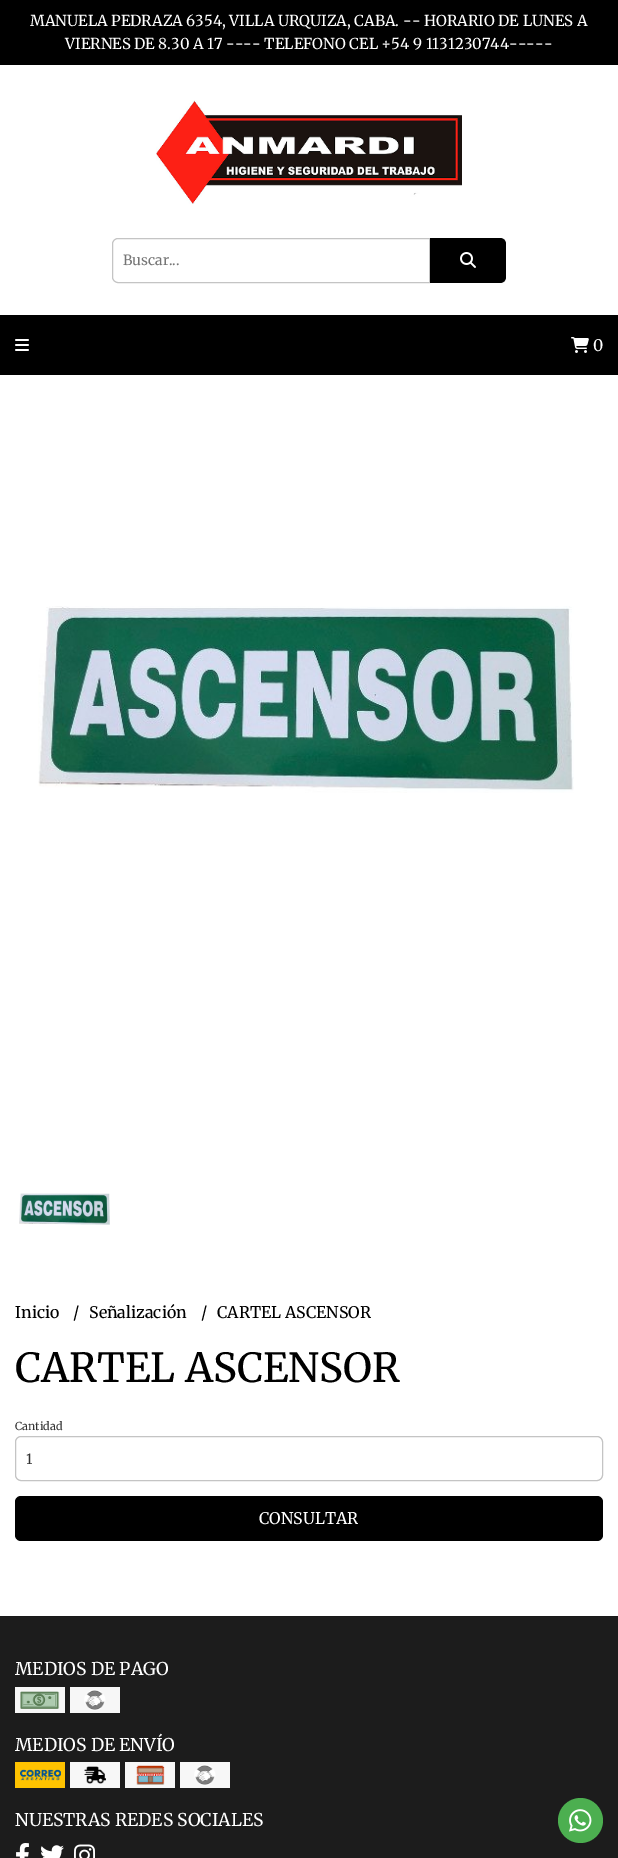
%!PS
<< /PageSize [618 1858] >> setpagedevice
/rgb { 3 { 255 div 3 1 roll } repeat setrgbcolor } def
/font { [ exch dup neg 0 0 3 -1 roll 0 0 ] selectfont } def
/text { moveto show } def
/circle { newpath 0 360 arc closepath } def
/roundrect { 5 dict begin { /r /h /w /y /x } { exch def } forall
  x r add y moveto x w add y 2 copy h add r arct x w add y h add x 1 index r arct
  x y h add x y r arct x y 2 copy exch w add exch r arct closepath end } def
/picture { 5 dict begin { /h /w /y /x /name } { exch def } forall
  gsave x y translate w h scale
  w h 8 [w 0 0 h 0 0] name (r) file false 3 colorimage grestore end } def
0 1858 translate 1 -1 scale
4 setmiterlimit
255 255 255 rgb
0 0 618 1858 rectfill
0 0 0 rgb
0 0 618 65 rectfill
(img_01.rgb) 156 100 306 104 picture
196 196 196 rgb
118 238.5 moveto 311.5 0 rlineto 0 44 rlineto -311.5 0 rlineto -3 0 -5.5 -2.5 -5.5 -5.5 rcurveto 0 -33 rlineto 0 -3 2.5 -5.5 5.5 -5.5 rcurveto closepath stroke
0 0 0 rgb
430 238 moveto 70 0 rlineto 3.5 0 6 2.5 6 6 rcurveto 0 33 rlineto 0 3.5 -2.5 6 -6 6 rcurveto -70 0 rlineto closepath fill
(img_02.rgb) 460 252 16 16 picture
0 315 618 60 rectfill
(img_03.rgb) 15 339 14 12 picture
(img_04.rgb) 571 337 18 16 picture
(img_05.rgb) 38 606 536 187 picture
(img_06.rgb) 19 1193 91 32 picture
196 196 196 rgb
15.5 1436.5 587 44 5.5 roundrect stroke
0 0 0 rgb
15 1496 588 45 6 roundrect fill
28 28 28 rgb
0 1617 618 241 rectfill
25 25 25 rgb
0 1616 618 1 rectfill
(img_07.rgb) 15 1687 50 26 picture
(img_08.rgb) 70 1687 50 26 picture
(img_09.rgb) 15 1762 50 26 picture
(img_10.rgb) 70 1762 50 26 picture
(img_11.rgb) 125 1762 50 26 picture
(img_12.rgb) 180 1762 50 26 picture
(img_13.rgb) 16 1843 13 15 picture
(img_14.rgb) 41 1845 23 13 picture
(img_15.rgb) 74 1844 21 14 picture
76 175 80 rgb
580.5 1820.5 22.5 circle fill
(img_16.rgb) 569 1809 23 23 picture
/Merriweather-Regular 15 font
255 255 255 rgb
(MANUELA PEDRAZA 6354, VILLA URQUIZA, CABA. -- HORARIO DE LUNES A) 30 26 text
(VIERNES DE 8.30 A 17 ---- TELEFONO CEL +54 9 1131230744-----) 65 49 text
/Merriweather-Regular 14 font
117 117 117 rgb
(Buscar...) 123 265 text
/Merriweather-Regular 16 font
255 255 255 rgb
(0) 593 351 text
0 0 0 rgb
(Inicio) 15 1318 text
(/) 73 1318 text
(Señalización) 89 1318 text
(/) 201 1318 text
(CARTEL ASCENSOR) 217 1318 text
/Merriweather-Regular 40 font
(CARTEL ASCENSOR) 15 1382 text
/Merriweather-Regular 11 font
51 51 51 rgb
(Cantidad) 15 1430 text
/Merriweather-Regular 14 font
(1) 26 1464 text
/Merriweather-Regular 16 font
255 255 255 rgb
(CONSULTAR) 259 1524 text
/Merriweather-Regular 17.6 font
(MEDIOS DE PAGO) 15 1675 text
(MEDIOS DE ENVÍO) 15 1751 text
(NUESTRAS REDES SOCIALES) 15 1826 text
showpage
